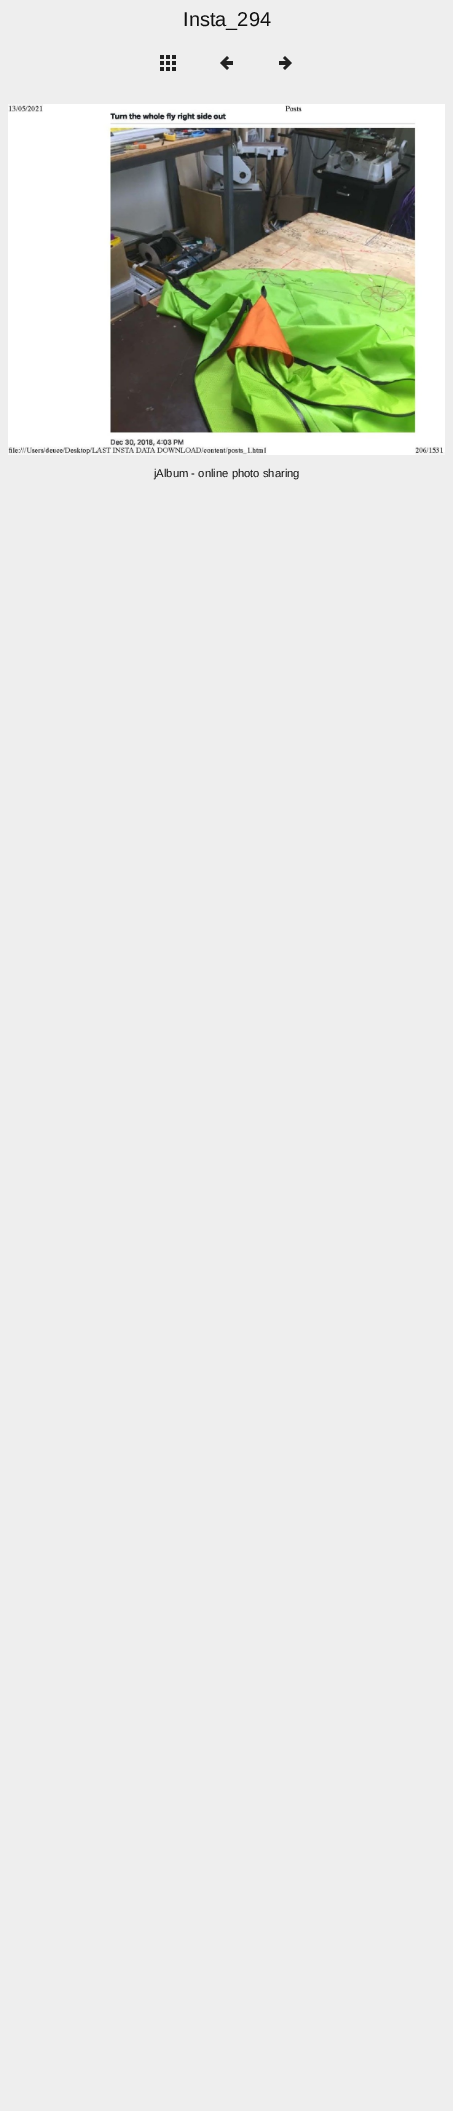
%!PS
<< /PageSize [453 2111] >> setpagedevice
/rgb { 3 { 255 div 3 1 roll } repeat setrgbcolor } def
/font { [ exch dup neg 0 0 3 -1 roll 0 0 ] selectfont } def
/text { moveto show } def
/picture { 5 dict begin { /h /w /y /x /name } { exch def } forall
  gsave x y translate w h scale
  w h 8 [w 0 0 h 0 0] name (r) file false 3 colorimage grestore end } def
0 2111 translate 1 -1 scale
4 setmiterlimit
238 238 238 rgb
0 0 453 2111 rectfill
(img_01.rgb) 160 55 16 16 picture
(img_02.rgb) 220 56 13 14 picture
(img_03.rgb) 279 56 13 14 picture
(img_04.rgb) 8 104 437 351 picture
/LiberationSans-Regular 20 font
17 17 17 rgb
(Insta_294) 183 26 text
/LiberationSans-Regular 11.25 font
(jAlbum - online photo sharing) 154 477 text
showpage
